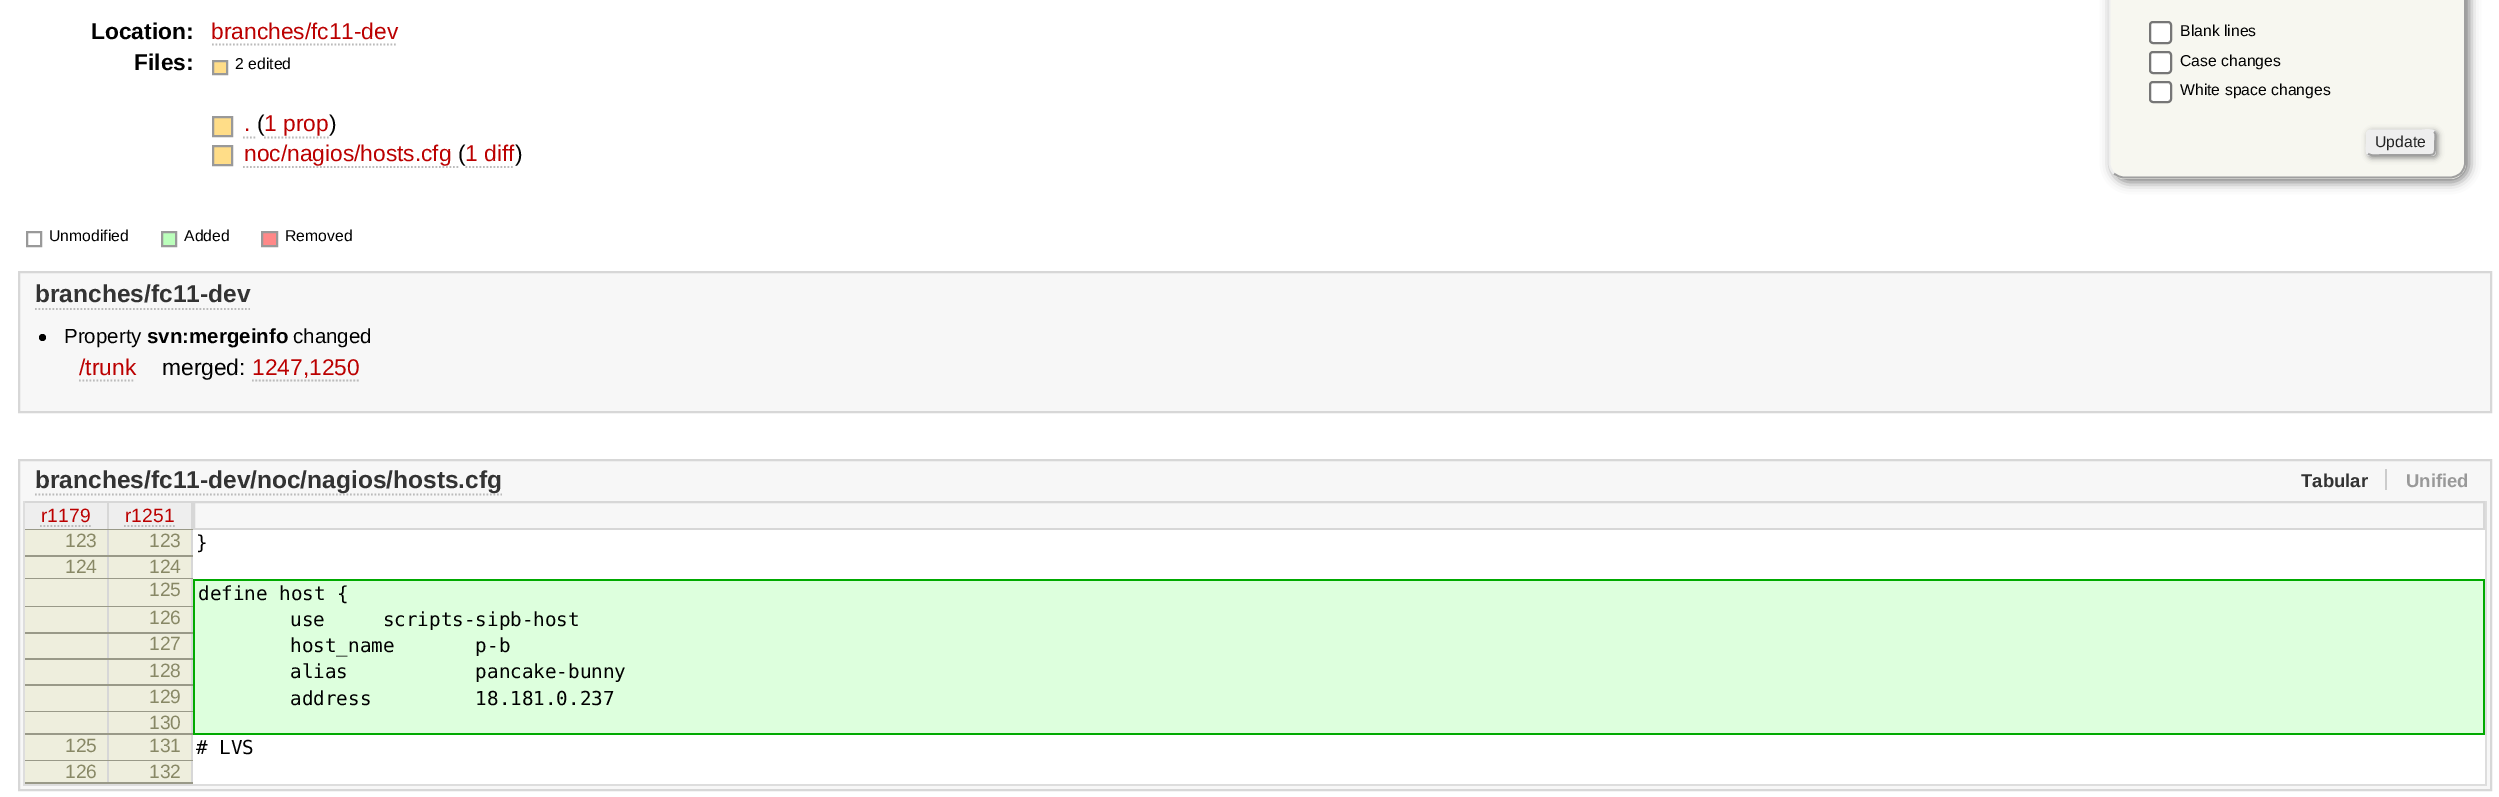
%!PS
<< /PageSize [2499 797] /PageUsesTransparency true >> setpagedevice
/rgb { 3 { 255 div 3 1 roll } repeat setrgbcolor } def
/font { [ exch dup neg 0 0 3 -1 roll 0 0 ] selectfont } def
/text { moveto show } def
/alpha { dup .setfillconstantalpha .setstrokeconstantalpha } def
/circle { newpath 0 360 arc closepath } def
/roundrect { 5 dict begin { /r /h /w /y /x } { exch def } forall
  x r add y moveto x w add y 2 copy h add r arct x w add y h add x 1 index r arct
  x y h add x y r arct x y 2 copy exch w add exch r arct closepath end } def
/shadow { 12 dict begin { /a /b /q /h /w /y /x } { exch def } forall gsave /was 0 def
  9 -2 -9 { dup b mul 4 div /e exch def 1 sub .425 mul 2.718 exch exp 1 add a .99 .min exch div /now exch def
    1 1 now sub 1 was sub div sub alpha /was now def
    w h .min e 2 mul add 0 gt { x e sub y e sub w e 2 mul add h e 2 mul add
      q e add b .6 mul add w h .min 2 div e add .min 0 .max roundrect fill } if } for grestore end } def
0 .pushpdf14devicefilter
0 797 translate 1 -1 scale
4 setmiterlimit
255 255 255 rgb
0 0 2499 797 rectfill
187 187 187 rgb
1.8 setlinewidth
[1.75 1.75] 0 setdash
212 44.5 moveto 185 0 rlineto stroke
255 221 136 rgb
213 61 moveto 14 0 rlineto 0 13 rlineto -14 0 rlineto closepath gsave fill grestore
153 153 153 rgb
2 setlinewidth
[] 0 setdash
stroke
255 221 136 rgb
213 117 moveto 19 0 rlineto 0 19 rlineto -19 0 rlineto closepath gsave fill grestore
153 153 153 rgb
stroke
187 187 187 rgb
1.8 setlinewidth
[1.75 1.75] 0 setdash
243 137.5 moveto 14 0 rlineto stroke
264 137.5 moveto 65 0 rlineto stroke
255 221 136 rgb
213 146 moveto 19 0 rlineto 0 19 rlineto -19 0 rlineto closepath gsave fill grestore
153 153 153 rgb
2 setlinewidth
[] 0 setdash
stroke
187 187 187 rgb
1.8 setlinewidth
[1.75 1.75] 0 setdash
243 167 moveto 215.5 0 rlineto stroke
465.5 167 moveto 49 0 rlineto stroke
119 119 119 rgb
2112 -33 357 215 16 5.5 1 shadow
247 247 240 rgb
2109 -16 357 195 16 roundrect fill
159 159 159 rgb
[] 0 setdash
2460.5 -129.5 moveto 3 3 4.5 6.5 4.5 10.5 rcurveto 0 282 rlineto 0 3.5 -1.5 7.5 -4.5 10.5 rcurveto -3 2.5 -6.5 4 -10.5 4 rcurveto -325.5 0 rlineto -4 0 -7.5 -1.5 -10.5 -4 rcurveto stroke
238 238 238 rgb
2114 173.5 moveto -3 -3 -4.5 -7 -4.5 -10.5 rcurveto 0 -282 rlineto 0 -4 1.5 -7.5 4.5 -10.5 rcurveto 3 -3 6.5 -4.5 10.5 -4.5 rcurveto 325.5 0 rlineto 4 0 7.5 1.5 10.5 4.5 rcurveto stroke
255 255 255 rgb
2150 22 21 21 3 roundrect gsave fill grestore
118 118 118 rgb
2 setlinewidth
stroke
255 255 255 rgb
2150 52 21 21 3 roundrect gsave fill grestore
118 118 118 rgb
stroke
255 255 255 rgb
2150 82 21 20 3 roundrect gsave fill grestore
118 118 118 rgb
stroke
136 136 136 rgb
2368 131 70 27 4 3 1 shadow
238 238 238 rgb
2366 130 70 26 4 roundrect fill
159 159 159 rgb
1.8 setlinewidth
2434 131.5 moveto 2.5 2.5 1 8.5 1 11 rcurveto 0 14 1 12.5 -14 12.5 rcurveto -40 0 rlineto -0.5 0 -10.5 1.5 -13 -1.5 rcurveto stroke
238 238 238 rgb
2368 153.5 moveto -2.5 -2 -1 -8 -1 -11 rcurveto 0 -14 -1 -12 14 -12 rcurveto 40 0 rlineto 0.5 0 10.5 -1.5 13 1 rcurveto stroke
153 153 153 rgb
2 setlinewidth
27 232 14 14 rectstroke
187 255 187 rgb
162 232 moveto 14 0 rlineto 0 14 rlineto -14 0 rlineto closepath gsave fill grestore
153 153 153 rgb
stroke
255 136 136 rgb
262 232 moveto 15 0 rlineto 0 14 rlineto -15 0 rlineto closepath gsave fill grestore
153 153 153 rgb
stroke
247 247 247 rgb
19 272 moveto 2472 0 rlineto 0 140 rlineto -2472 0 rlineto closepath gsave fill grestore
215 215 215 rgb
stroke
187 187 187 rgb
1.8 setlinewidth
[1.75 1.75] 0 setdash
35 309 moveto 215 0 rlineto stroke
0 0 0 rgb
42.5 337.5 3.5 circle fill
187 187 187 rgb
79 380.5 moveto 56 0 rlineto stroke
252 380.5 moveto 107 0 rlineto stroke
247 247 247 rgb
19 460 moveto 2472 0 rlineto 0 330 rlineto -2472 0 rlineto closepath gsave fill grestore
215 215 215 rgb
2 setlinewidth
[] 0 setdash
stroke
187 187 187 rgb
1.8 setlinewidth
[1.75 1.75] 0 setdash
35 494.5 moveto 467 0 rlineto stroke
204 204 204 rgb
2385 469 2 21 rectfill
221 221 221 rgb
2485 501 2 285 rectfill
23 784 2464 2 rectfill
23 501 2 285 rectfill
238 238 238 rgb
25 503 82 26 rectfill
215 215 215 rgb
25 501 168 2 rectfill
107 501 2 283 rectfill
153 153 136 rgb
25 529 84 1 rectfill
187 187 187 rgb
40 526 moveto 51 0 rlineto stroke
238 238 238 rgb
109 503 82 26 rectfill
215 215 215 rgb
191 501 2 283 rectfill
153 153 136 rgb
109 529 84 1 rectfill
187 187 187 rgb
124 526 moveto 51 0 rlineto stroke
215 215 215 rgb
2 setlinewidth
[] 0 setdash
194 502 2290 27 rectstroke
238 238 221 rgb
25 530 82 25 rectfill
153 153 136 rgb
25 555 168 2 rectfill
238 238 221 rgb
109 530 82 25 rectfill
255 255 255 rgb
193 530 2292 49 rectfill
238 238 221 rgb
25 557 82 21 rectfill
153 153 136 rgb
25 578 168 1 rectfill
238 238 221 rgb
109 557 82 21 rectfill
25 579 82 27 rectfill
153 153 136 rgb
25 606 168 1 rectfill
238 238 221 rgb
109 579 82 27 rectfill
221 255 221 rgb
195 581 2288 152 rectfill
0 170 0 rgb
193 579 2292 2 rectfill
2483 579 2 156 rectfill
193 579 2 133 rectfill
238 238 221 rgb
25 607 82 25 rectfill
153 153 136 rgb
25 632 168 2 rectfill
238 238 221 rgb
109 607 82 25 rectfill
25 634 82 24 rectfill
153 153 136 rgb
25 658 168 2 rectfill
238 238 221 rgb
109 634 82 24 rectfill
25 660 82 24 rectfill
153 153 136 rgb
25 684 168 2 rectfill
238 238 221 rgb
109 660 82 24 rectfill
25 686 82 25 rectfill
153 153 136 rgb
25 711 168 1 rectfill
238 238 221 rgb
109 686 82 25 rectfill
25 712 82 21 rectfill
153 153 136 rgb
25 733 168 2 rectfill
0 170 0 rgb
193 733 2292 2 rectfill
193 712 2 23 rectfill
238 238 221 rgb
109 712 82 21 rectfill
25 735 82 25 rectfill
153 153 136 rgb
25 760 168 1 rectfill
238 238 221 rgb
109 735 82 25 rectfill
255 255 255 rgb
193 735 2292 49 rectfill
238 238 221 rgb
25 761 82 21 rectfill
153 153 136 rgb
25 782 168 2 rectfill
238 238 221 rgb
109 761 82 21 rectfill
/LiberationSans-Bold 22.75 font
0 0 0 rgb
(Location:) 91 39 text
/LiberationSans-Regular 22.75 font
187 0 0 rgb
(branches/fc11-dev) 211 39 text
/LiberationSans-Bold 22.75 font
0 0 0 rgb
(Files:) 134 70 text
/LiberationSans-Regular 15.75 font
(2 edited) 235 69 text
/LiberationSans-Regular 22.75 font
187 0 0 rgb
(.) 244 131 text
0 0 0 rgb
(\() 257 131 text
187 0 0 rgb
(1 prop) 264 131 text
0 0 0 rgb
(\)) 329 131 text
187 0 0 rgb
(noc/nagios/hosts.cfg) 244 161 text
0 0 0 rgb
(\() 458 161 text
187 0 0 rgb
(1 diff) 465 161 text
0 0 0 rgb
(\)) 515 161 text
/LiberationSans-Regular 15.75 font
(Blank lines) 2180 36 text
(Case changes) 2180 66 text
(White space changes) 2180 95 text
34 34 34 rgb
(Update) 2375 147 text
0 0 0 rgb
(Unmodified) 49 241 text
(Added) 184 241 text
(Removed) 285 241 text
/LiberationSans-Bold 24.5 font
51 51 51 rgb
(branches/fc11-dev) 35 302 text
/LiberationSans-Regular 20.5 font
0 0 0 rgb
(Property) 64 343 text
/LiberationSans-Bold 20.5 font
(svn:mergeinfo) 147 343 text
/LiberationSans-Regular 20.5 font
(changed) 293 343 text
/LiberationSans-Regular 22.75 font
187 0 0 rgb
(/trunk) 79 375 text
0 0 0 rgb
(merged:) 162 375 text
187 0 0 rgb
(1247,1250) 252 375 text
/LiberationSans-Bold 24.5 font
51 51 51 rgb
(branches/fc11-dev/noc/nagios/hosts.cfg) 35 488 text
/LiberationSans-Bold 18.5 font
(Tabular) 2301 487 text
153 153 153 rgb
(Unified) 2406 487 text
/LiberationSans-Regular 19.25 font
187 0 0 rgb
(r1179) 41 522 text
(r1251) 125 522 text
136 136 102 rgb
(123) 65 547 text
(123) 149 547 text
/DejaVuSansMono-Regular 19.25 font
0 0 0 rgb
(}) 196 549 text
/LiberationSans-Regular 19.25 font
136 136 102 rgb
(124) 65 573 text
(124) 149 573 text
(125) 149 596 text
/DejaVuSansMono-Regular 19.25 font
0 0 0 rgb
(define host {) 198 600 text
/LiberationSans-Regular 19.25 font
136 136 102 rgb
(126) 149 624 text
/DejaVuSansMono-Regular 19.25 font
0 0 0 rgb
(use     scripts-sipb-host) 290 626 text
/LiberationSans-Regular 19.25 font
136 136 102 rgb
(127) 149 650 text
/DejaVuSansMono-Regular 19.25 font
0 0 0 rgb
(host_name       p-b) 290 652 text
/LiberationSans-Regular 19.25 font
136 136 102 rgb
(128) 149 677 text
/DejaVuSansMono-Regular 19.25 font
0 0 0 rgb
(alias           pancake-bunny) 290 678 text
/LiberationSans-Regular 19.25 font
136 136 102 rgb
(129) 149 703 text
/DejaVuSansMono-Regular 19.25 font
0 0 0 rgb
(address         18.181.0.237) 290 705 text
/LiberationSans-Regular 19.25 font
136 136 102 rgb
(130) 149 729 text
(125) 65 752 text
(131) 149 752 text
/DejaVuSansMono-Regular 19.25 font
0 0 0 rgb
(# LVS) 196 754 text
/LiberationSans-Regular 19.25 font
136 136 102 rgb
(126) 65 778 text
(132) 149 778 text
.poppdf14devicefilter showpage
